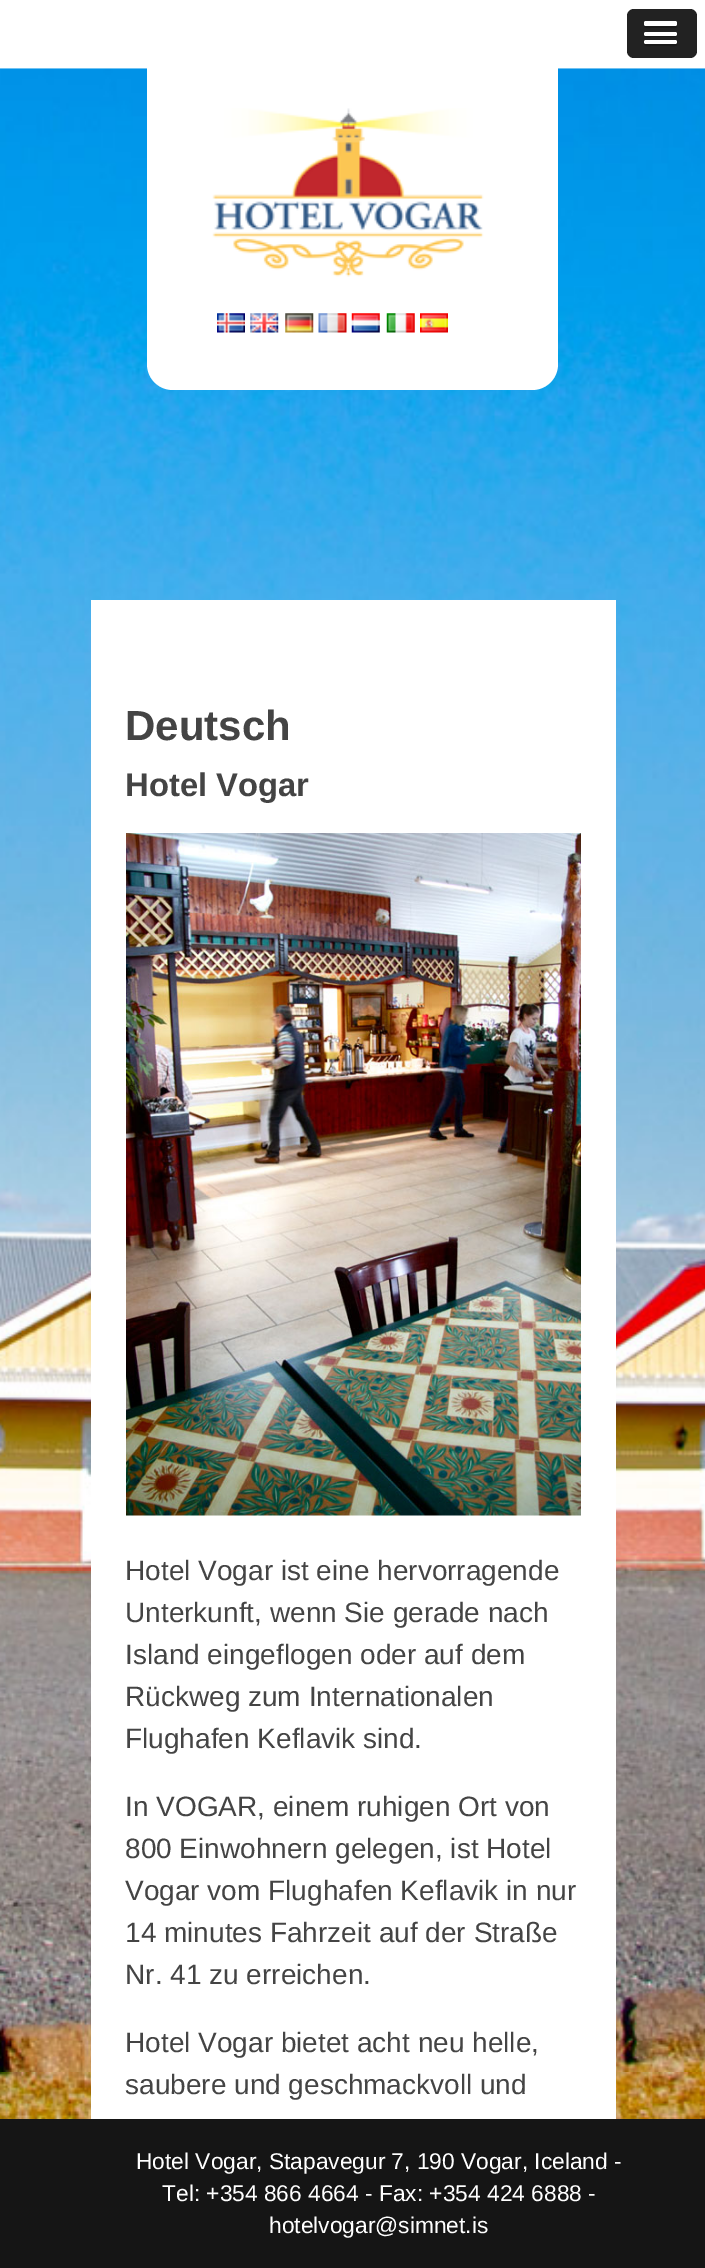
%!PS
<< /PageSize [705 2268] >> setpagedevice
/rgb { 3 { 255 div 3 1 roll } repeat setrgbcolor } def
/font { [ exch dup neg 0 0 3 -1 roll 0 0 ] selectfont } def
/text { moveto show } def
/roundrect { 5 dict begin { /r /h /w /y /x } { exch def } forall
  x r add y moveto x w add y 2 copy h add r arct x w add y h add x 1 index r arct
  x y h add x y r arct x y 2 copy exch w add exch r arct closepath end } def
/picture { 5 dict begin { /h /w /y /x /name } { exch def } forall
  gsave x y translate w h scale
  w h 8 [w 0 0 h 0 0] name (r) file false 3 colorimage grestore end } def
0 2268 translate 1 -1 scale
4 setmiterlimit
255 255 255 rgb
0 0 705 2268 rectfill
34 34 34 rgb
627 9 70 49 7 roundrect fill
26 26 26 rgb
644 24.5 moveto -0.5 4.5 3.5 3.5 7 3.5 rcurveto 19 0 rlineto 3 0 7 1 7 -2.5 rcurveto -0.5 0.5 -1 0.5 -1.5 0.5 rcurveto -29.5 0 rlineto -1 0 -2 -0.5 -2 -1.5 rcurveto closepath fill
255 255 255 rgb
644 21 33 5 2 roundrect fill
26 26 26 rgb
644 34 moveto -1.5 4 6 3 7 3 rcurveto 19 0 rlineto 1 0 8 1 7 -2.5 rcurveto -0.5 0 -1 0.5 -1.5 0.5 rcurveto -29.5 0 rlineto -1 0 -1.5 -0.5 -2 -1 rcurveto closepath fill
255 255 255 rgb
644 32 33 4 2 roundrect fill
26 26 26 rgb
644.5 43 moveto -2.5 4 6 3 6.5 3 rcurveto 19 0 rlineto 1 0 8.5 1 7 -3 rcurveto -1.5 0.5 rlineto -30 0 rlineto closepath fill
255 255 255 rgb
644 40 33 4 2 roundrect fill
(img_01.rgb) 0 68 705 2051 picture
147 68 moveto 411 0 rlineto 0 296 rlineto 0 14.5 -11.5 26 -26 26 rcurveto -359 0 rlineto -14.5 0 -26 -11.5 -26 -26 rcurveto closepath fill
(img_02.rgb) 212 108 272 169 picture
(img_03.rgb) 217 313 28 20 picture
(img_04.rgb) 250 313 29 20 picture
(img_05.rgb) 285 313 29 20 picture
(img_06.rgb) 318 313 29 20 picture
(img_07.rgb) 351 313 29 20 picture
(img_08.rgb) 386 313 29 20 picture
(img_09.rgb) 420 313 28 20 picture
91 600 525 1519 rectfill
(img_10.rgb) 126 833 455 683 picture
21 21 21 rgb
0 2119 705 149 rectfill
/LiberationSans-Bold 42 font
68 68 68 rgb
(Deutsch) 125 740 text
/LiberationSans-Bold 32.75 font
(Hotel Vogar) 125 796 text
/LiberationSans-Regular 28 font
(Hotel Vogar ist eine hervorragende) 125 1580 text
(Unterkunft, wenn Sie gerade nach) 125 1622 text
(Island eingeflogen oder auf dem) 125 1664 text
(Rückweg zum Internationalen) 125 1706 text
(Flughafen Keflavik sind.) 125 1748 text
(In VOGAR, einem ruhigen Ort von) 125 1816 text
(800 Einwohnern gelegen, ist Hotel) 125 1858 text
(Vogar vom Flughafen Keflavik in nur) 125 1900 text
(14 minutes Fahrzeit auf der Straße) 125 1942 text
(Nr. 41 zu erreichen.) 125 1984 text
(Hotel Vogar bietet acht neu helle,) 125 2052 text
(saubere und geschmackvoll und) 125 2094 text
/LiberationSans-Regular 22.75 font
255 255 255 rgb
(Hotel Vogar, Stapavegur 7, 190 Vogar, Iceland -) 136 2169 text
(Tel: +354 866 4664 - Fax: +354 424 6888 -) 162 2201 text
(hotelvogar@simnet.is) 269 2233 text
showpage
